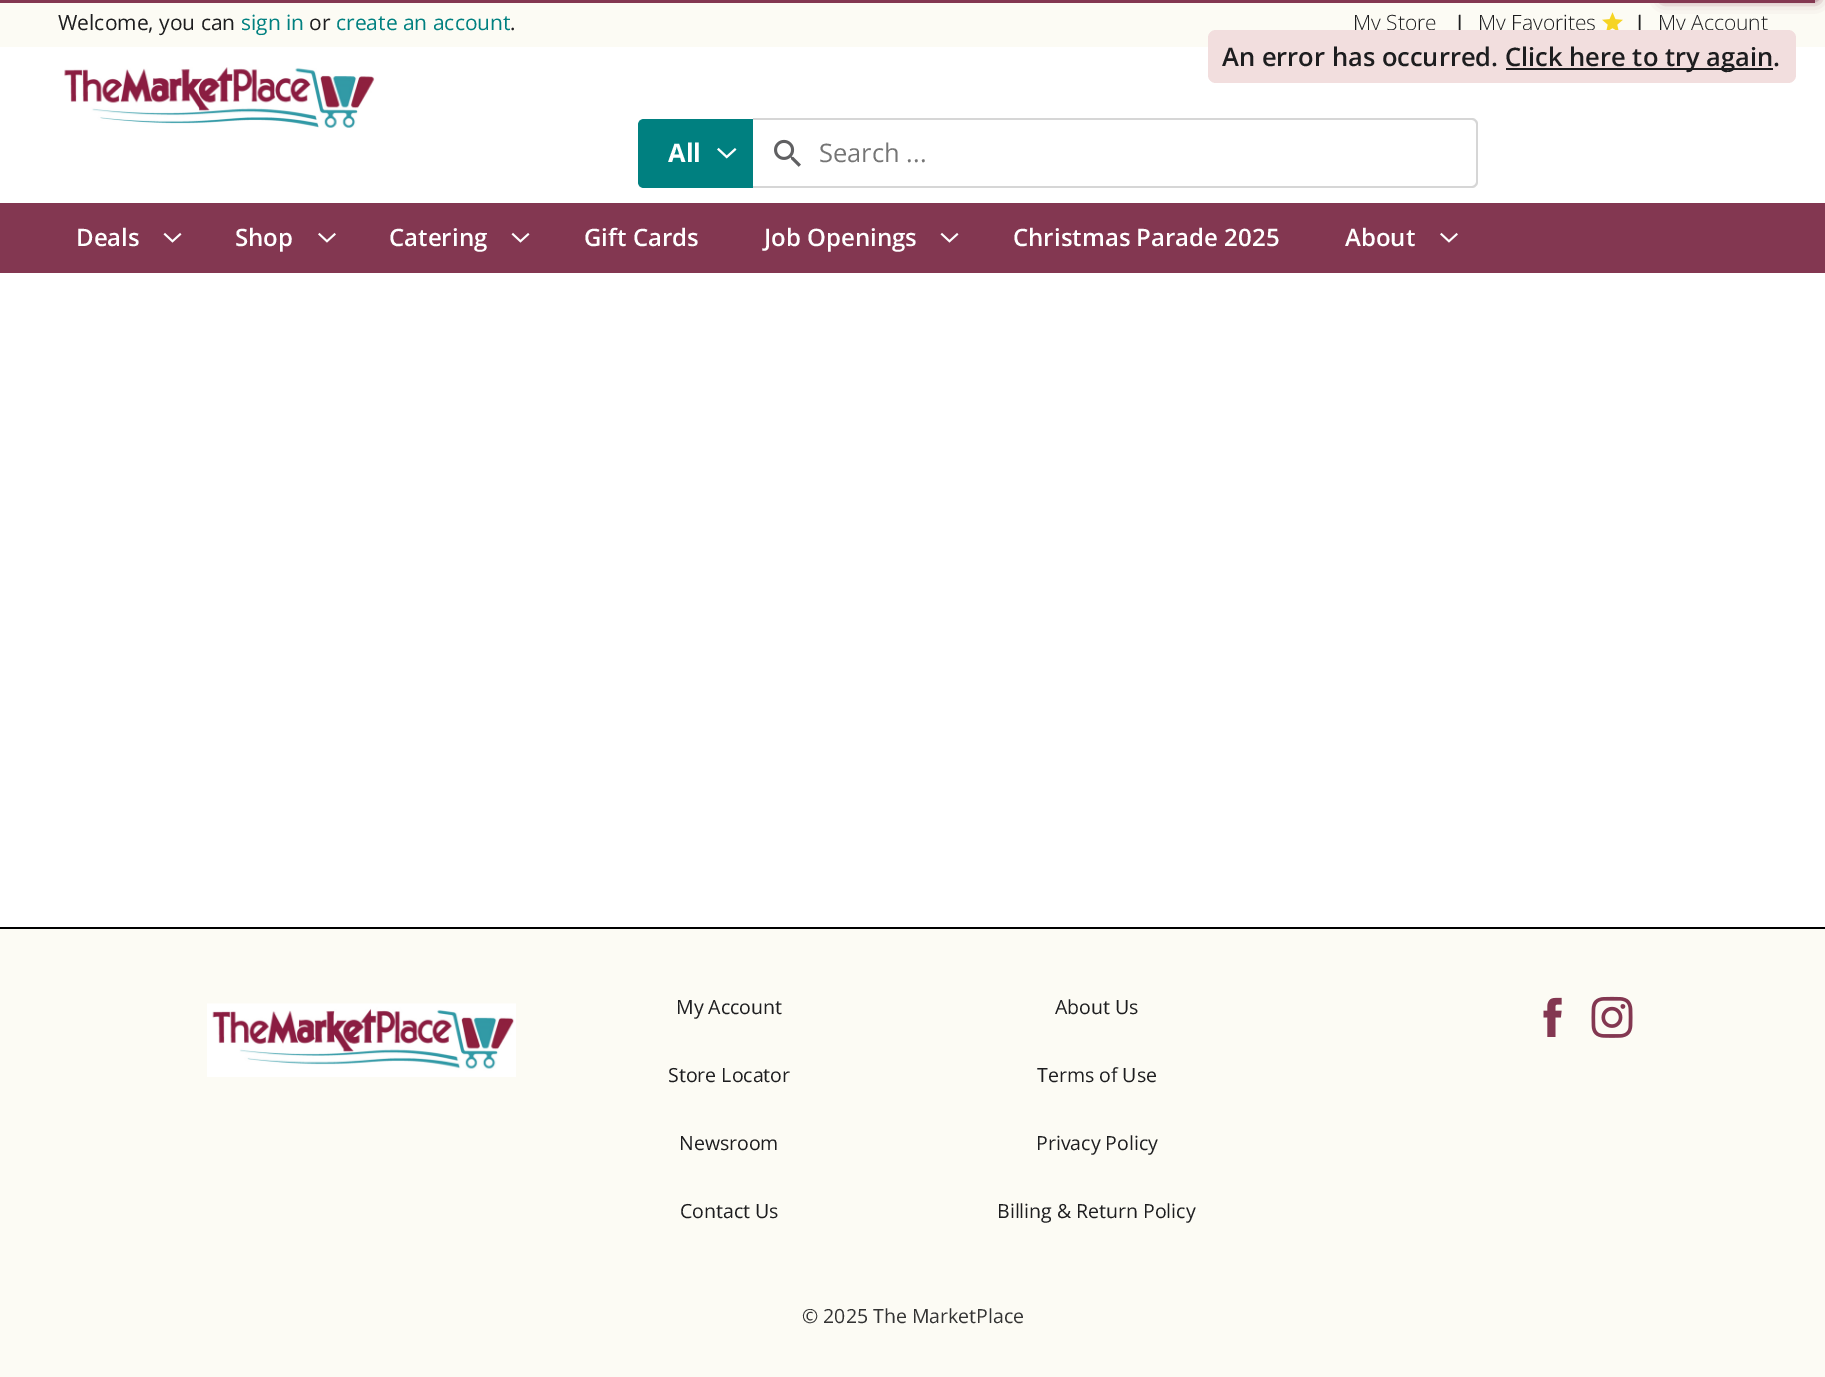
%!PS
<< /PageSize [1825 1377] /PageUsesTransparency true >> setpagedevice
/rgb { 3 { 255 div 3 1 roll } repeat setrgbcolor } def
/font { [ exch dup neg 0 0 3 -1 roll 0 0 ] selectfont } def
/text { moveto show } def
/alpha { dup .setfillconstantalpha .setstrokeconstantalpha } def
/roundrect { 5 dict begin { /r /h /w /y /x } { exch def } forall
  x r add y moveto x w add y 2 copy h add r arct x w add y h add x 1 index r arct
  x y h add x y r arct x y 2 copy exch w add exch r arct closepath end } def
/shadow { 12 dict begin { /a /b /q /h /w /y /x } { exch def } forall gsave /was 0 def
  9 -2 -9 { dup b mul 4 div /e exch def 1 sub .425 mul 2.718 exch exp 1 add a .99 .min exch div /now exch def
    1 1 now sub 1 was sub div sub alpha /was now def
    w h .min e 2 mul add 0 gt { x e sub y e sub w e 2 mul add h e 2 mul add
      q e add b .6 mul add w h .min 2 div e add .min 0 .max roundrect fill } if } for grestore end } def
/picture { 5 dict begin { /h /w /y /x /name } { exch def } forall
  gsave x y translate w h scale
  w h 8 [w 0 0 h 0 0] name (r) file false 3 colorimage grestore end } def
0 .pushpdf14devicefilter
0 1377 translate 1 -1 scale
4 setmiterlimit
255 255 255 rgb
0 0 1825 1377 rectfill
252 251 244 rgb
0 0 1825 47 rectfill
(img_01.rgb) 1602 12 21 18 picture
(img_02.rgb) 64 67 311 61 picture
0 128 128 rgb
644 119 moveto 109 0 rlineto 0 69 rlineto -109 0 rlineto -3.5 0 -6 -2.5 -6 -6 rcurveto 0 -57 rlineto 0 -3.5 2.5 -6 6 -6 rcurveto closepath fill
(img_03.rgb) 717 147 20 12 picture
214 214 214 rgb
753 118 moveto 719 0 rlineto 3 0 6 3 6 6 rcurveto 0 58 rlineto 0 3 -3 6 -6 6 rcurveto -719 0 rlineto closepath 753 120 moveto 719 0 rlineto 2 0 4 2 4 4 rcurveto 0 58 rlineto 0 2 -2 4 -4 4 rcurveto -719 0 rlineto closepath eofill
(img_04.rgb) 774 139 27 28 picture
131 55 81 rgb
0 203 1825 70 rectfill
(img_05.rgb) 163 232 19 11 picture
(img_06.rgb) 318 232 18 11 picture
(img_05.rgb) 511 232 19 11 picture
(img_05.rgb) 940 232 19 11 picture
(img_06.rgb) 1440 232 18 11 picture
252 251 244 rgb
0 929 1825 448 rectfill
0 0 0 rgb
0 927 1825 2 rectfill
(img_07.rgb) 207 1003 309 74 picture
(img_08.rgb) 1543 997 19 40 picture
(img_09.rgb) 1591 996 42 42 picture
131 55 81 rgb
0 0 1815 3 rectfill
1665 -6 150 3 0 4 1 shadow
1665 -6 150 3 0 7.5 1 shadow
/OpenSans-Regular 21 font
29 29 31 rgb
(Welcome, you can) 58 30 text
0 128 128 rgb
(sign in) 241 30 text
29 29 31 rgb
(or) 309 30 text
0 128 128 rgb
(create an account) 336 30 text
29 29 31 rgb
(.) 510 30 text
/OpenSans-Light 21 font
(My Store) 1353 30 text
/LiberationSans-Regular 21 font
(|) 1457 30 text
/OpenSans-Light 21 font
(My Favorites) 1478 30 text
/LiberationSans-Regular 21 font
(|) 1637 30 text
/OpenSans-Light 21 font
(My Account) 1658 30 text
/OpenSans-Bold 25.5 font
255 255 255 rgb
(All) 668 162 text
/OpenSans-Regular 25.5 font
117 117 117 rgb
(Search ...) 819 162 text
/OpenSans-SemiBold 24 font
255 255 255 rgb
(Deals) 76 246 text
(Shop) 235 246 text
(Catering) 389 246 text
(Gift Cards) 584 246 text
(Job Openings) 764 246 text
(Christmas Parade 2025) 1013 246 text
(About) 1345 246 text
/OpenSans-Regular 19.5 font
29 29 31 rgb
(My Account) 676 1014 text
(Store Locator) 668 1082 text
(Newsroom) 679 1150 text
(Contact Us) 680 1218 text
(About Us) 1055 1014 text
(Terms of Use) 1037 1082 text
(Privacy Policy) 1036 1150 text
(Billing & Return Policy) 997 1218 text
51 51 51 rgb
(© 2025 The MarketPlace) 802 1323 text
242 222 222 rgb
1208 30 588 53 8 roundrect fill
/OpenSans-SemiBold 25.5 font
29 29 31 rgb
(An error has occurred.) 1222 66 text
1506 68 267 2 rectfill
(Click here to try again.) 1505 66 text
.poppdf14devicefilter showpage
